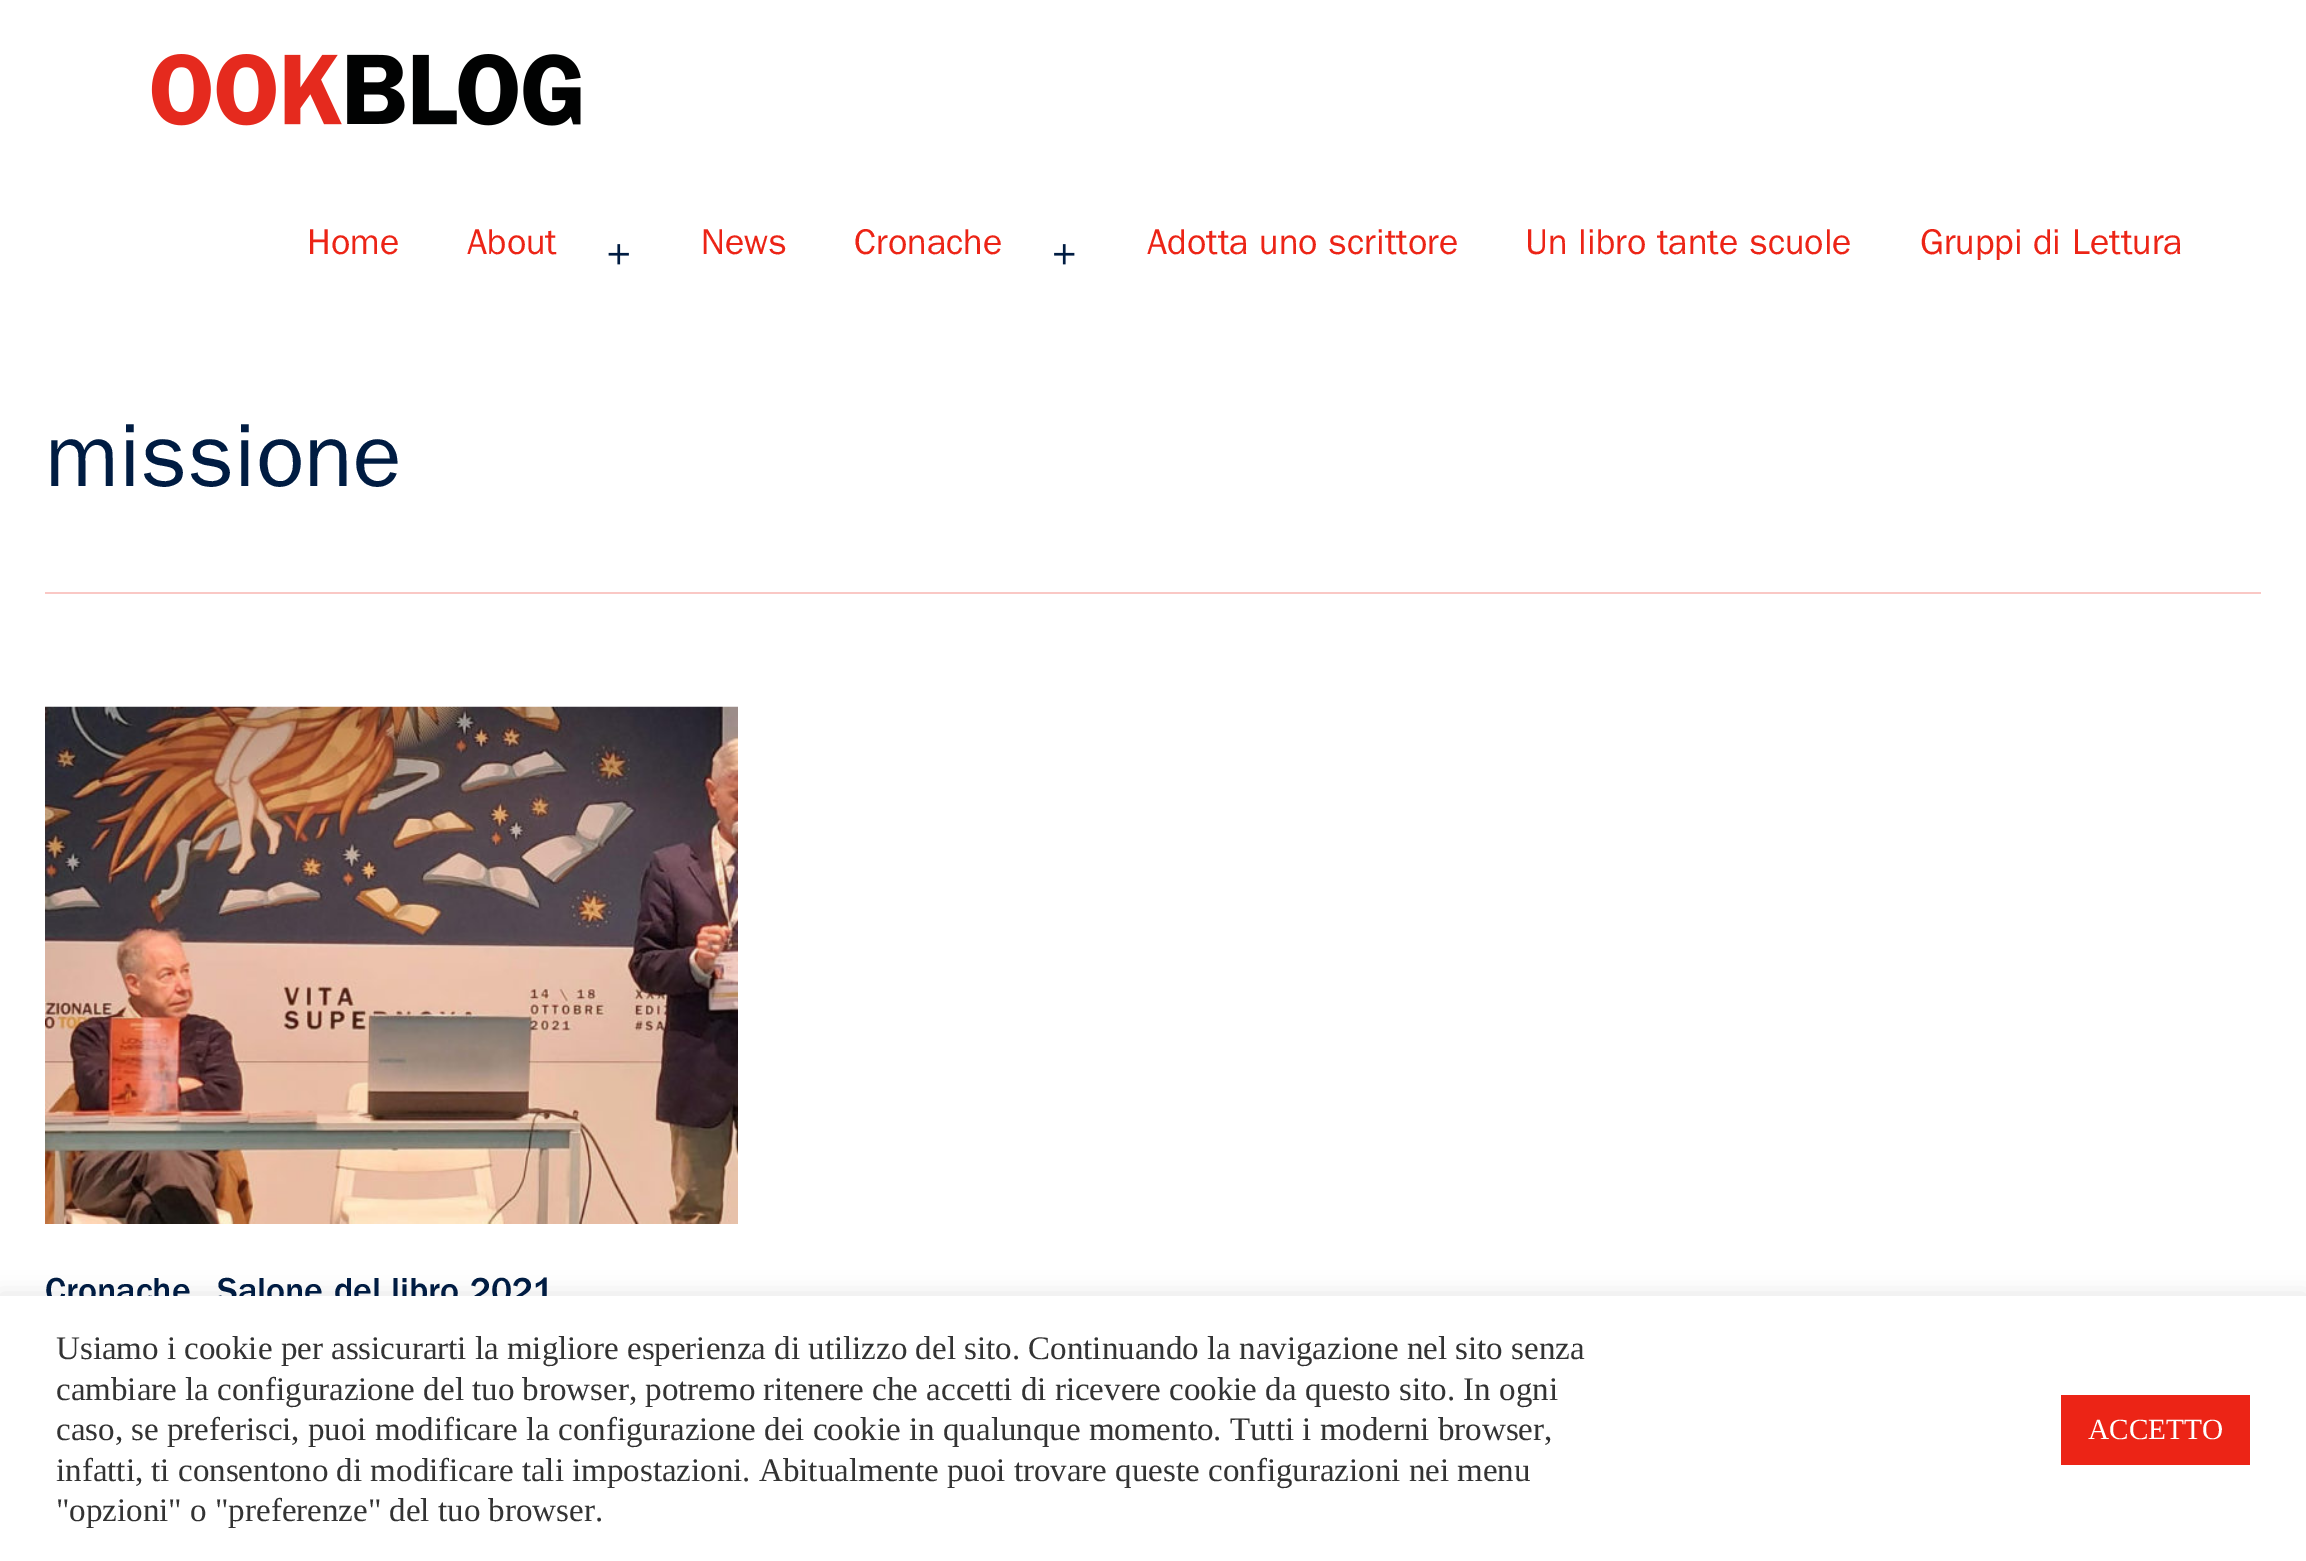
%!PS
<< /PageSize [2306 1561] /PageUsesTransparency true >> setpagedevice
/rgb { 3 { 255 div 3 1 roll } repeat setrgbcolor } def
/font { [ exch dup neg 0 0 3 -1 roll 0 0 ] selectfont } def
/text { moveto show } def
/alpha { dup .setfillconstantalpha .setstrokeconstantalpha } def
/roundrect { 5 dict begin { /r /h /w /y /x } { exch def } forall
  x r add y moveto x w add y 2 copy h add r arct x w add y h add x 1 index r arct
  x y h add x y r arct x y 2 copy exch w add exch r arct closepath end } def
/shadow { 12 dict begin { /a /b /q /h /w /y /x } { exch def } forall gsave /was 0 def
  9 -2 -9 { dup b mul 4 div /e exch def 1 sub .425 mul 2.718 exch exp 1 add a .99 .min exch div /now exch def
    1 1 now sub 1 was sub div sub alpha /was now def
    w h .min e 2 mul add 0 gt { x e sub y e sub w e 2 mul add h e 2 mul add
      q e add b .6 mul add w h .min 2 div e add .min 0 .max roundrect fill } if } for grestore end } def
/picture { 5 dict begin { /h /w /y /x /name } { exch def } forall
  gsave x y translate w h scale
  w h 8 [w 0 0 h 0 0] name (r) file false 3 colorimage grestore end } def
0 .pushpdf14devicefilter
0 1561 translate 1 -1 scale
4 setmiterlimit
255 255 255 rgb
0 0 2306 1561 rectfill
(img_01.rgb) 151 54 430 72 picture
(img_02.rgb) 608 244 21 21 picture
(img_03.rgb) 1054 244 21 21 picture
250 200 197 rgb
45 592 2216 2 rectfill
(img_04.rgb) 45 706 693 518 picture
172 171 171 rgb
0 1294 2306 265 0 11 0.3 shadow
/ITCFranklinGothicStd-Regular 36 font
236 36 22 rgb
(Home) 307 254 text
(About) 467 254 text
(News) 701 254 text
(Cronache) 854 254 text
(Adotta uno scrittore) 1147 254 text
(Un libro tante scuole) 1525 254 text
(Gruppi di Lettura) 1920 254 text
/ITCFranklinGothicStd-Regular 90 font
0 28 66 rgb
(missione) 45 486 text
/ITCFranklinGothicStd-Medium 36 font
(Cronache) 45 1302 text
(Salone del libro 2021) 217 1302 text
255 255 255 rgb
0 1296 2306 265 rectfill
/LiberationSerif-Regular 33 font
51 51 51 rgb
(Usiamo i cookie per assicurarti la migliore esperienza di utilizzo del sito. Continuando la navigazione nel sito senza) 56 1359 text
(cambiare la configurazione del tuo browser, potremo ritenere che accetti di ricevere cookie da questo sito. In ogni) 56 1400 text
(caso, se preferisci, puoi modificare la configurazione dei cookie in qualunque momento. Tutti i moderni browser,) 56 1440 text
(infatti, ti consentono di modificare tali impostazioni. Abitualmente puoi trovare queste configurazioni nei menu) 56 1481 text
("opzioni" o "preferenze" del tuo browser.) 56 1521 text
236 36 22 rgb
2061 1395 189 70 rectfill
/LiberationSerif-Regular 29.25 font
255 255 255 rgb
(ACCETTO) 2088 1439 text
.poppdf14devicefilter showpage
